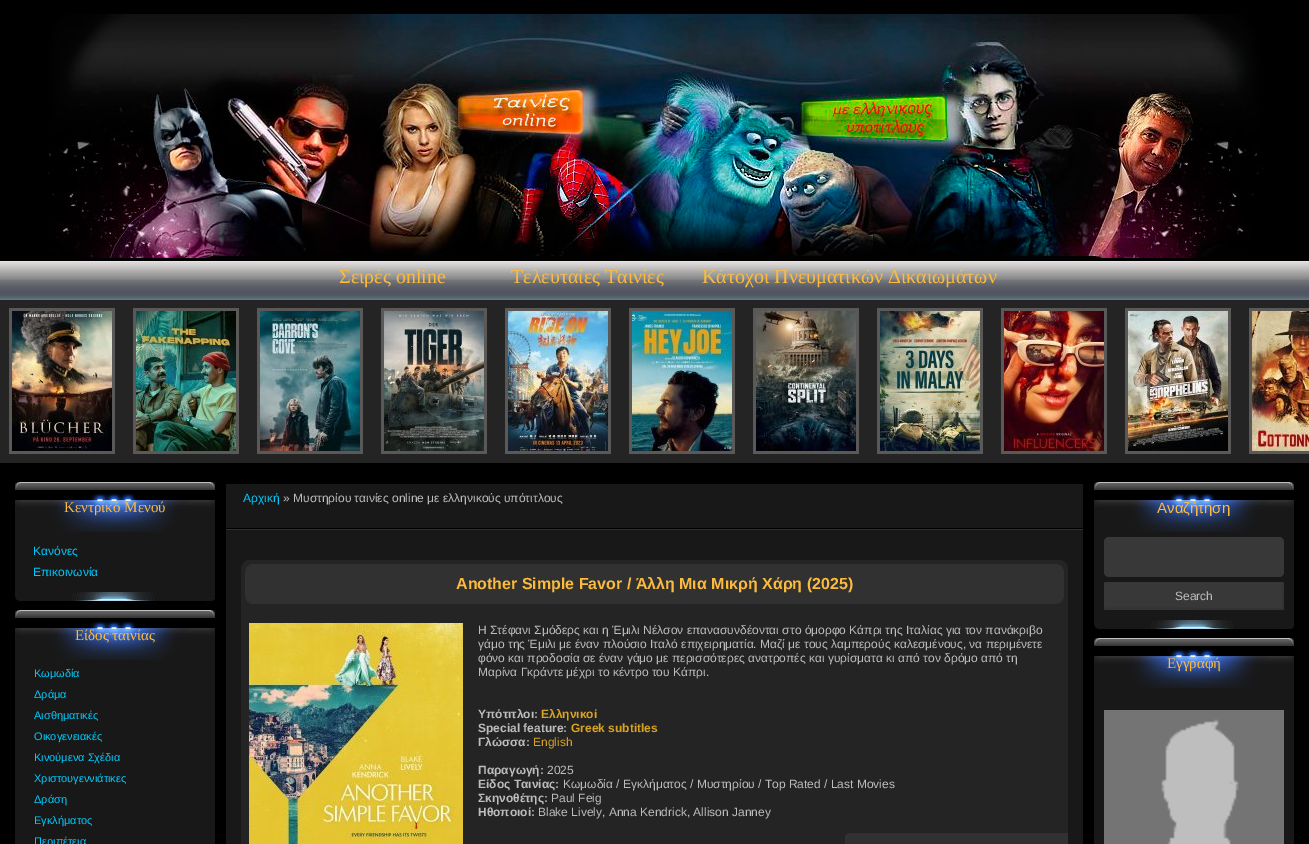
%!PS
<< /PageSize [1309 844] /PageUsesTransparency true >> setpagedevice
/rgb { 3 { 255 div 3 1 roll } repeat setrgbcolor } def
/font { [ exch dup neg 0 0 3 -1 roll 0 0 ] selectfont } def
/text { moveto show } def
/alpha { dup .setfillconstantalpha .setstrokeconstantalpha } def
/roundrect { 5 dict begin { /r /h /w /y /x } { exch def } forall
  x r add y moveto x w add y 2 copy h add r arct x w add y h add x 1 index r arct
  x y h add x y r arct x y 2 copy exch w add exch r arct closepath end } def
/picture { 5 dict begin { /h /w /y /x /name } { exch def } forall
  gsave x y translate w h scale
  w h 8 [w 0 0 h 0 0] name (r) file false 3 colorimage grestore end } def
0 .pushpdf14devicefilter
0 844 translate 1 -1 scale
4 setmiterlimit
0 0 0 rgb
0 0 1309 844 rectfill
(img_01.rgb) 47 14 1217 244 picture
(img_02.rgb) 0 261 1309 39 picture
36 36 36 rgb
0 300 1309 163 rectfill
90 89 87 rgb
9 308 106 146 rectfill
(img_03.rgb) 12 311 100 140 picture
133 308 106 146 rectfill
(img_04.rgb) 136 311 100 140 picture
257 308 106 146 rectfill
(img_05.rgb) 260 311 100 140 picture
381 308 106 146 rectfill
(img_06.rgb) 384 311 100 140 picture
505 308 106 146 rectfill
(img_07.rgb) 508 311 100 140 picture
629 308 106 146 rectfill
(img_08.rgb) 632 311 100 140 picture
753 308 106 146 rectfill
(img_09.rgb) 756 311 100 140 picture
877 308 106 146 rectfill
(img_10.rgb) 880 311 100 140 picture
1001 308 106 146 rectfill
(img_11.rgb) 1004 311 100 140 picture
1125 308 106 146 rectfill
(img_12.rgb) 1128 311 100 140 picture
1249 308 60 146 rectfill
(img_13.rgb) 1252 311 57 140 picture
(img_14.rgb) 15 482 200 50 picture
24 24 24 rgb
15 532 200 60 rectfill
(img_15.rgb) 15 592 200 14 picture
(img_14.rgb) 15 610 200 50 picture
15 660 200 184 rectfill
226 484 857 360 rectfill
0 0 0 rgb
226 528 857 1 rectfill
45 50 54 rgb
226 529 857 1 rectfill
36 36 36 rgb
241 560 827 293 9 roundrect fill
50 49 49 rgb
245 564 819 40 9 roundrect fill
247 566 815 36 rectfill
(img_16.rgb) 249 623 214 221 picture
49 49 49 rgb
850 833 moveto 218 0 rlineto 0 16 rlineto -218 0 rlineto -3 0 -5 -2 -5 -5 rcurveto 0 -6 rlineto 0 -3 2 -5 5 -5 rcurveto closepath fill
(img_14.rgb) 1094 482 200 50 picture
24 24 24 rgb
1094 532 200 88 rectfill
56 56 56 rgb
1104 537 180 40 5 roundrect fill
1104 582 180 28 2 roundrect fill
0.16 alpha
29 27 27 rgb
2 setlinewidth
1282.5 583.5 moveto 0.5 16.5 rlineto 0 1 1.5 9 -1 9 rcurveto -176.5 -0.5 rlineto stroke
1 alpha
(img_15.rgb) 1094 620 200 14 picture
(img_14.rgb) 1094 638 200 50 picture
24 24 24 rgb
1094 688 200 156 rectfill
(img_17.rgb) 1104 710 180 134 picture
/LiberationSerif-Regular 20 font
252 187 60 rgb
(Σειρές online) 339 283 text
(Τελευταίες Ταινίες) 511 283 text
(Κάτοχοι Πνευματικών Δικαιωμάτων) 702 283 text
/LiberationSerif-Regular 15 font
(Κεντρικό Μενού) 64 512 text
/LiberationSans-Regular 12 font
0 202 252 rgb
(Κανόνες) 33 555 text
(Επικοινωνία) 33 576 text
/LiberationSerif-Regular 15 font
252 187 60 rgb
(Είδος ταινίας) 75 640 text
/LiberationSans-Regular 11 font
0 202 252 rgb
(Κωμωδία) 34 677 text
(Δράμα) 34 698 text
(Αισθηματικές) 34 719 text
(Οικογενειακές) 34 740 text
(Κινούμενα Σχέδια) 34 761 text
(Χριστουγεννιάτικες) 34 782 text
(Δράση) 34 803 text
(Εγκλήματος) 34 824 text
(Περιπέτεια) 34 845 text
/LiberationSans-Regular 12 font
(Αρχική) 243 502 text
189 189 189 rgb
(» Μυστηρίου ταινίες online με ελληνικούς υπότιτλους) 283 502 text
/LiberationSans-Bold 16 font
252 187 60 rgb
(Another Simple Favor / Άλλη Μια Μικρή Χάρη \(2025\)) 456 589 text
/LiberationSans-Regular 12 font
189 189 189 rgb
(Η Στέφανι Σμόδερς και η Έμιλι Νέλσον επανασυνδέονται στο όμορφο Κάπρι της Ιταλίας για τον πανάκριβο) 478 634 text
(γάμο της Έμιλι με έναν πλούσιο Ιταλό επιχειρηματία. Μαζί με τους λαμπερούς καλεσμένους, να περιμένετε) 478 648 text
(φόνο και προδοσία σε έναν γάμο με περισσότερες ανατροπές και γυρίσματα κι από τον δρόμο από τη) 478 662 text
(Μαρίνα Γκράντε μέχρι το κέντρο του Κάπρι.) 478 676 text
/LiberationSans-Bold 12 font
(Υπότιτλοι:) 478 718 text
216 163 32 rgb
(Ελληνικοί) 541 718 text
189 189 189 rgb
(Special feature:) 478 732 text
216 163 32 rgb
(Greek subtitles) 571 732 text
189 189 189 rgb
(Γλώσσα:) 478 746 text
/LiberationSans-Regular 12 font
216 163 32 rgb
(English) 533 746 text
/LiberationSans-Bold 12 font
189 189 189 rgb
(Παραγωγή:) 478 774 text
/LiberationSans-Regular 12 font
(2025) 547 774 text
/LiberationSans-Bold 12 font
(Είδος Ταινίας:) 478 788 text
/LiberationSans-Regular 12 font
(Κωμωδία / Εγκλήματος / Μυστηρίου / Top Rated / Last Movies) 563 788 text
/LiberationSans-Bold 12 font
(Σκηνοθέτης:) 478 802 text
/LiberationSans-Regular 12 font
(Paul Feig) 551 802 text
/LiberationSans-Bold 12 font
(Ηθοποιοί:) 478 816 text
/LiberationSans-Regular 12 font
(Blake Lively, Anna Kendrick, Allison Janney) 538 816 text
/LiberationSans-Regular 15 font
252 187 60 rgb
(Αναζήτηση) 1157 513 text
/LiberationSans-Regular 12 font
189 189 189 rgb
(Search) 1175 600 text
/LiberationSerif-Regular 15 font
252 187 60 rgb
(Εγγραφή) 1167 668 text
.poppdf14devicefilter showpage
